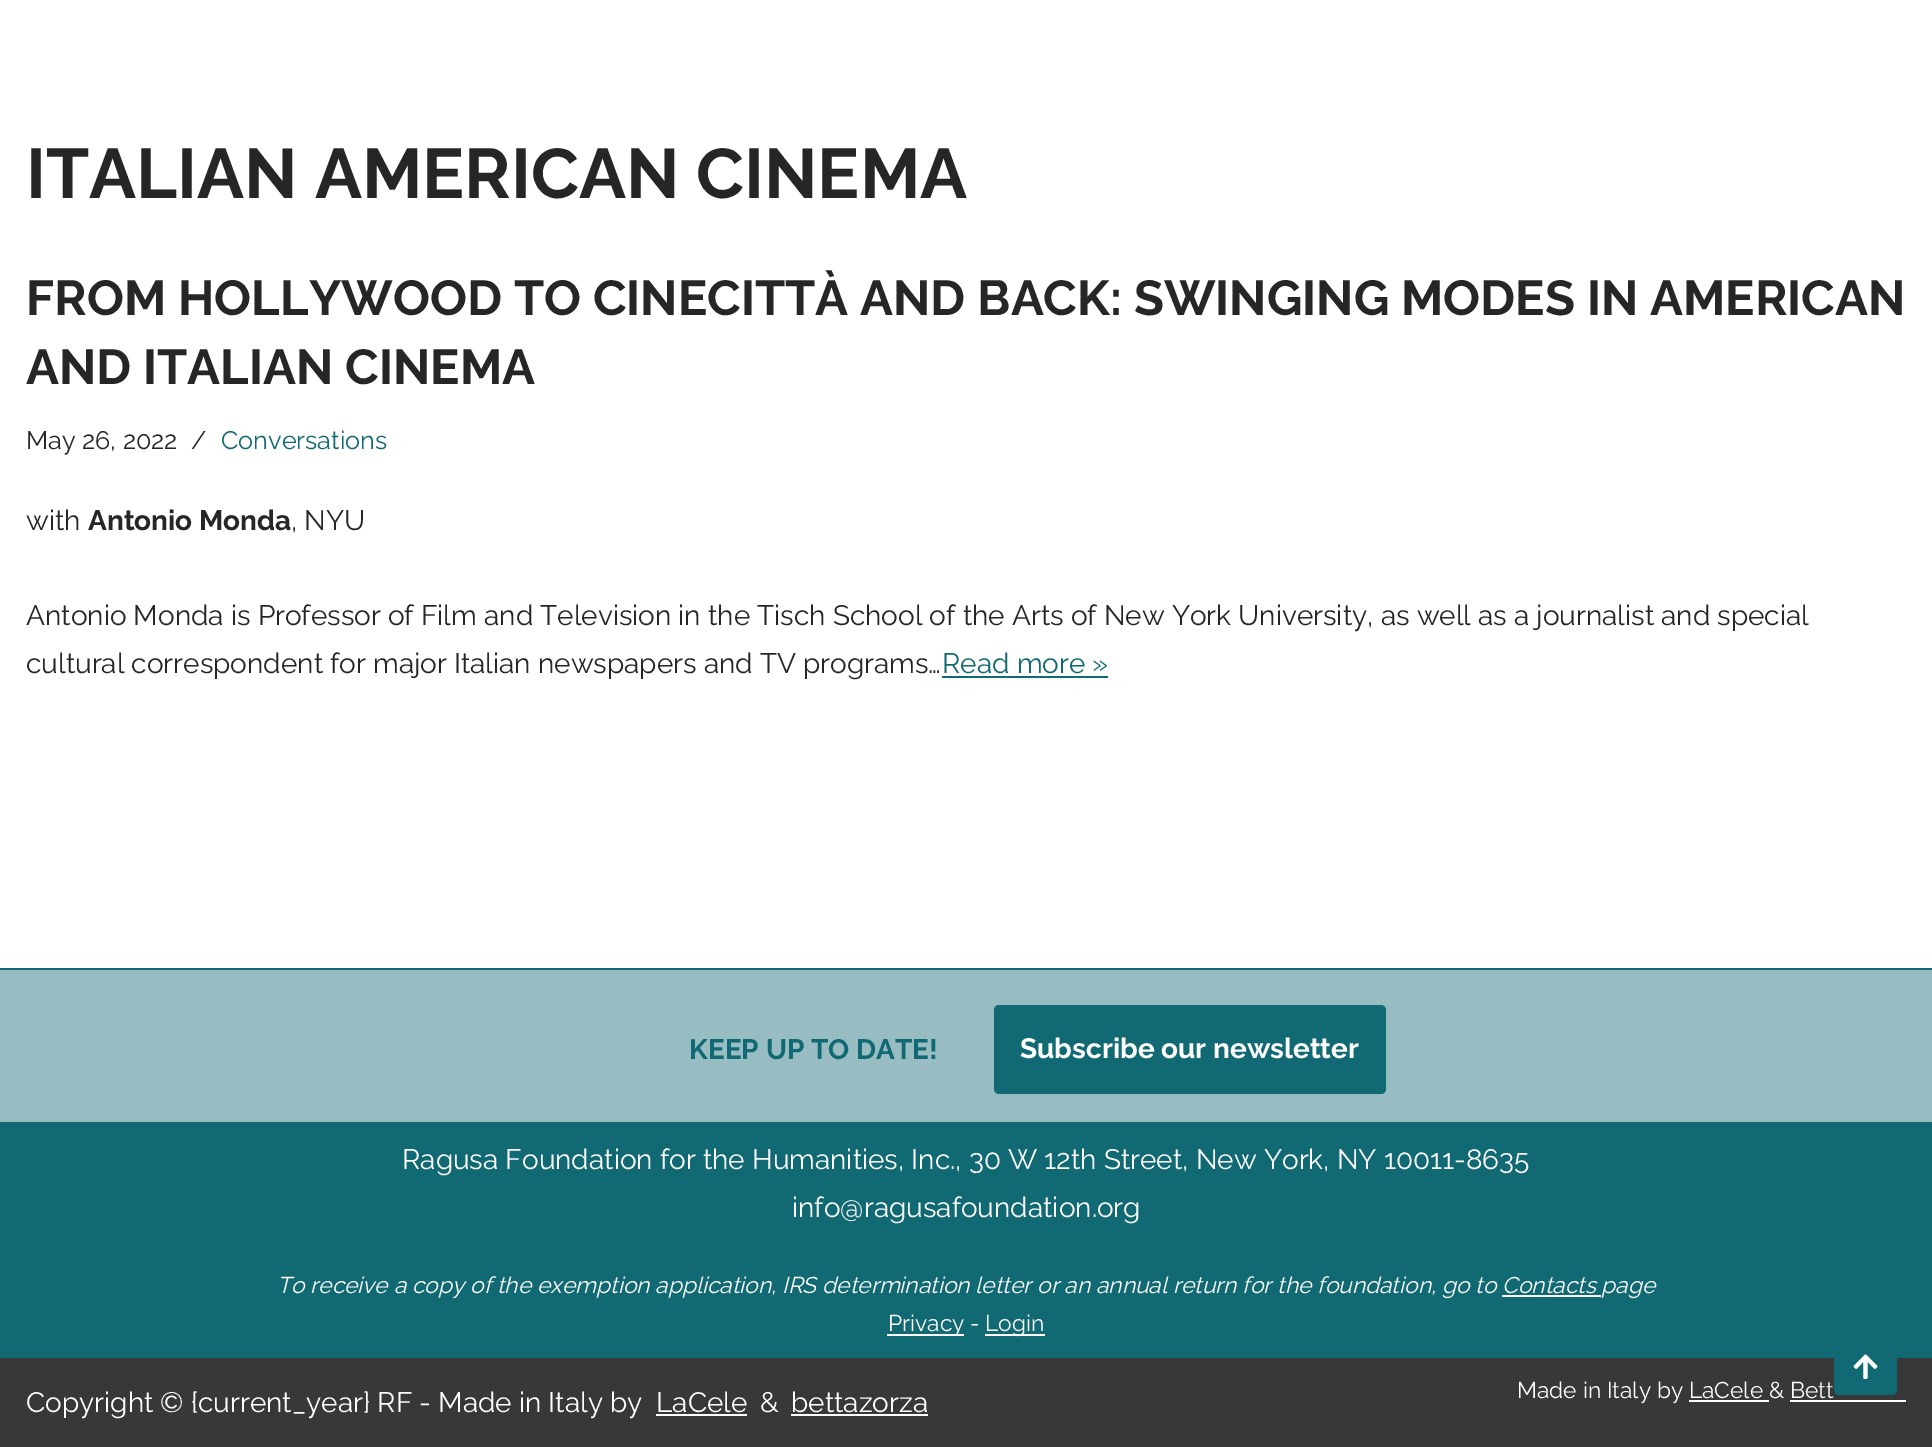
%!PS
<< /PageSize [1932 1447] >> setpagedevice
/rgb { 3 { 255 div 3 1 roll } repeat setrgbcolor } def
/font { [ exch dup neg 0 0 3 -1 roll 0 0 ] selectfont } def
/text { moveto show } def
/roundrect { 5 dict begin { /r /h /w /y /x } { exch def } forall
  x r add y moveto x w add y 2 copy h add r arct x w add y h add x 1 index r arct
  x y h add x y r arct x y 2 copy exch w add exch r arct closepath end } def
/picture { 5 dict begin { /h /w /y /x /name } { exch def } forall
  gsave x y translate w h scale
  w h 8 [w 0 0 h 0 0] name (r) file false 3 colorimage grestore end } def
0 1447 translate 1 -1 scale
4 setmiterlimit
255 255 255 rgb
0 0 1932 1447 rectfill
17 106 115 rgb
942 676 166 2 rectfill
0 968 1932 2 rectfill
151 189 194 rgb
0 970 1932 152 rectfill
17 106 115 rgb
994 1005 392 89 5 roundrect fill
0 1122 1932 236 rectfill
255 255 255 rgb
1502 1295 99 2 rectfill
887 1334 77 2 rectfill
985 1334 60 2 rectfill
56 56 56 rgb
0 1358 1932 89 rectfill
255 255 255 rgb
656 1414 91 2 rectfill
791 1414 137 2 rectfill
1689 1400 80 2 rectfill
1790 1400 116 2 rectfill
17 106 115 rgb
1834 1339 63 56 5 roundrect fill
(img_01.rgb) 1853 1354 25 25 picture
/Raleway-Bold 70 font
39 38 38 rgb
(ITALIAN AMERICAN CINEMA) 26 198 text
/Raleway-Bold 49 font
(FROM HOLLYWOOD TO CINECITTÀ AND BACK: SWINGING MODES IN AMERICAN) 26 315 text
(AND ITALIAN CINEMA) 26 384 text
/Raleway-Regular 25.25 font
(May 26, 2022) 26 449 text
(/) 191 449 text
17 106 115 rgb
(Conversations) 221 449 text
/Raleway-Regular 28 font
39 38 38 rgb
(with) 26 530 text
/Raleway-Bold 28 font
(Antonio Monda) 88 530 text
/Raleway-Regular 28 font
(, NYU) 291 530 text
(Antonio Monda is Professor of Film and Television in the Tisch School of the Arts of New York University, as well as a journalist and special) 26 625 text
(cultural correspondent for major Italian newspapers and TV programs…) 26 673 text
17 106 115 rgb
(Read more ») 942 673 text
/Raleway-Bold 28 font
(KEEP UP TO DATE!) 689 1059 text
255 255 255 rgb
(Subscribe our newsletter) 1020 1058 text
/Raleway-Regular 28 font
(Ragusa Foundation for the Humanities, Inc., 30 W 12th Street, New York, NY 10011-8635) 402 1169 text
(info@ragusafoundation.org) 792 1217 text
/Raleway-Italic 22.75 font
(To receive a copy of the exemption application, IRS determination letter or an annual return for the foundation, go to Contacts page) 277 1293 text
/Raleway-Regular 22.75 font
(Privacy -) 888 1331 text
(Login) 985 1331 text
/Raleway-Regular 28 font
(Copyright © {current_year} RF - Made in Italy by) 26 1412 text
(LaCele) 656 1412 text
(&) 760 1412 text
(bettazorza) 791 1412 text
/Raleway-Regular 22.75 font
(Made in Italy by LaCele & Bett) 1517 1398 text
showpage
